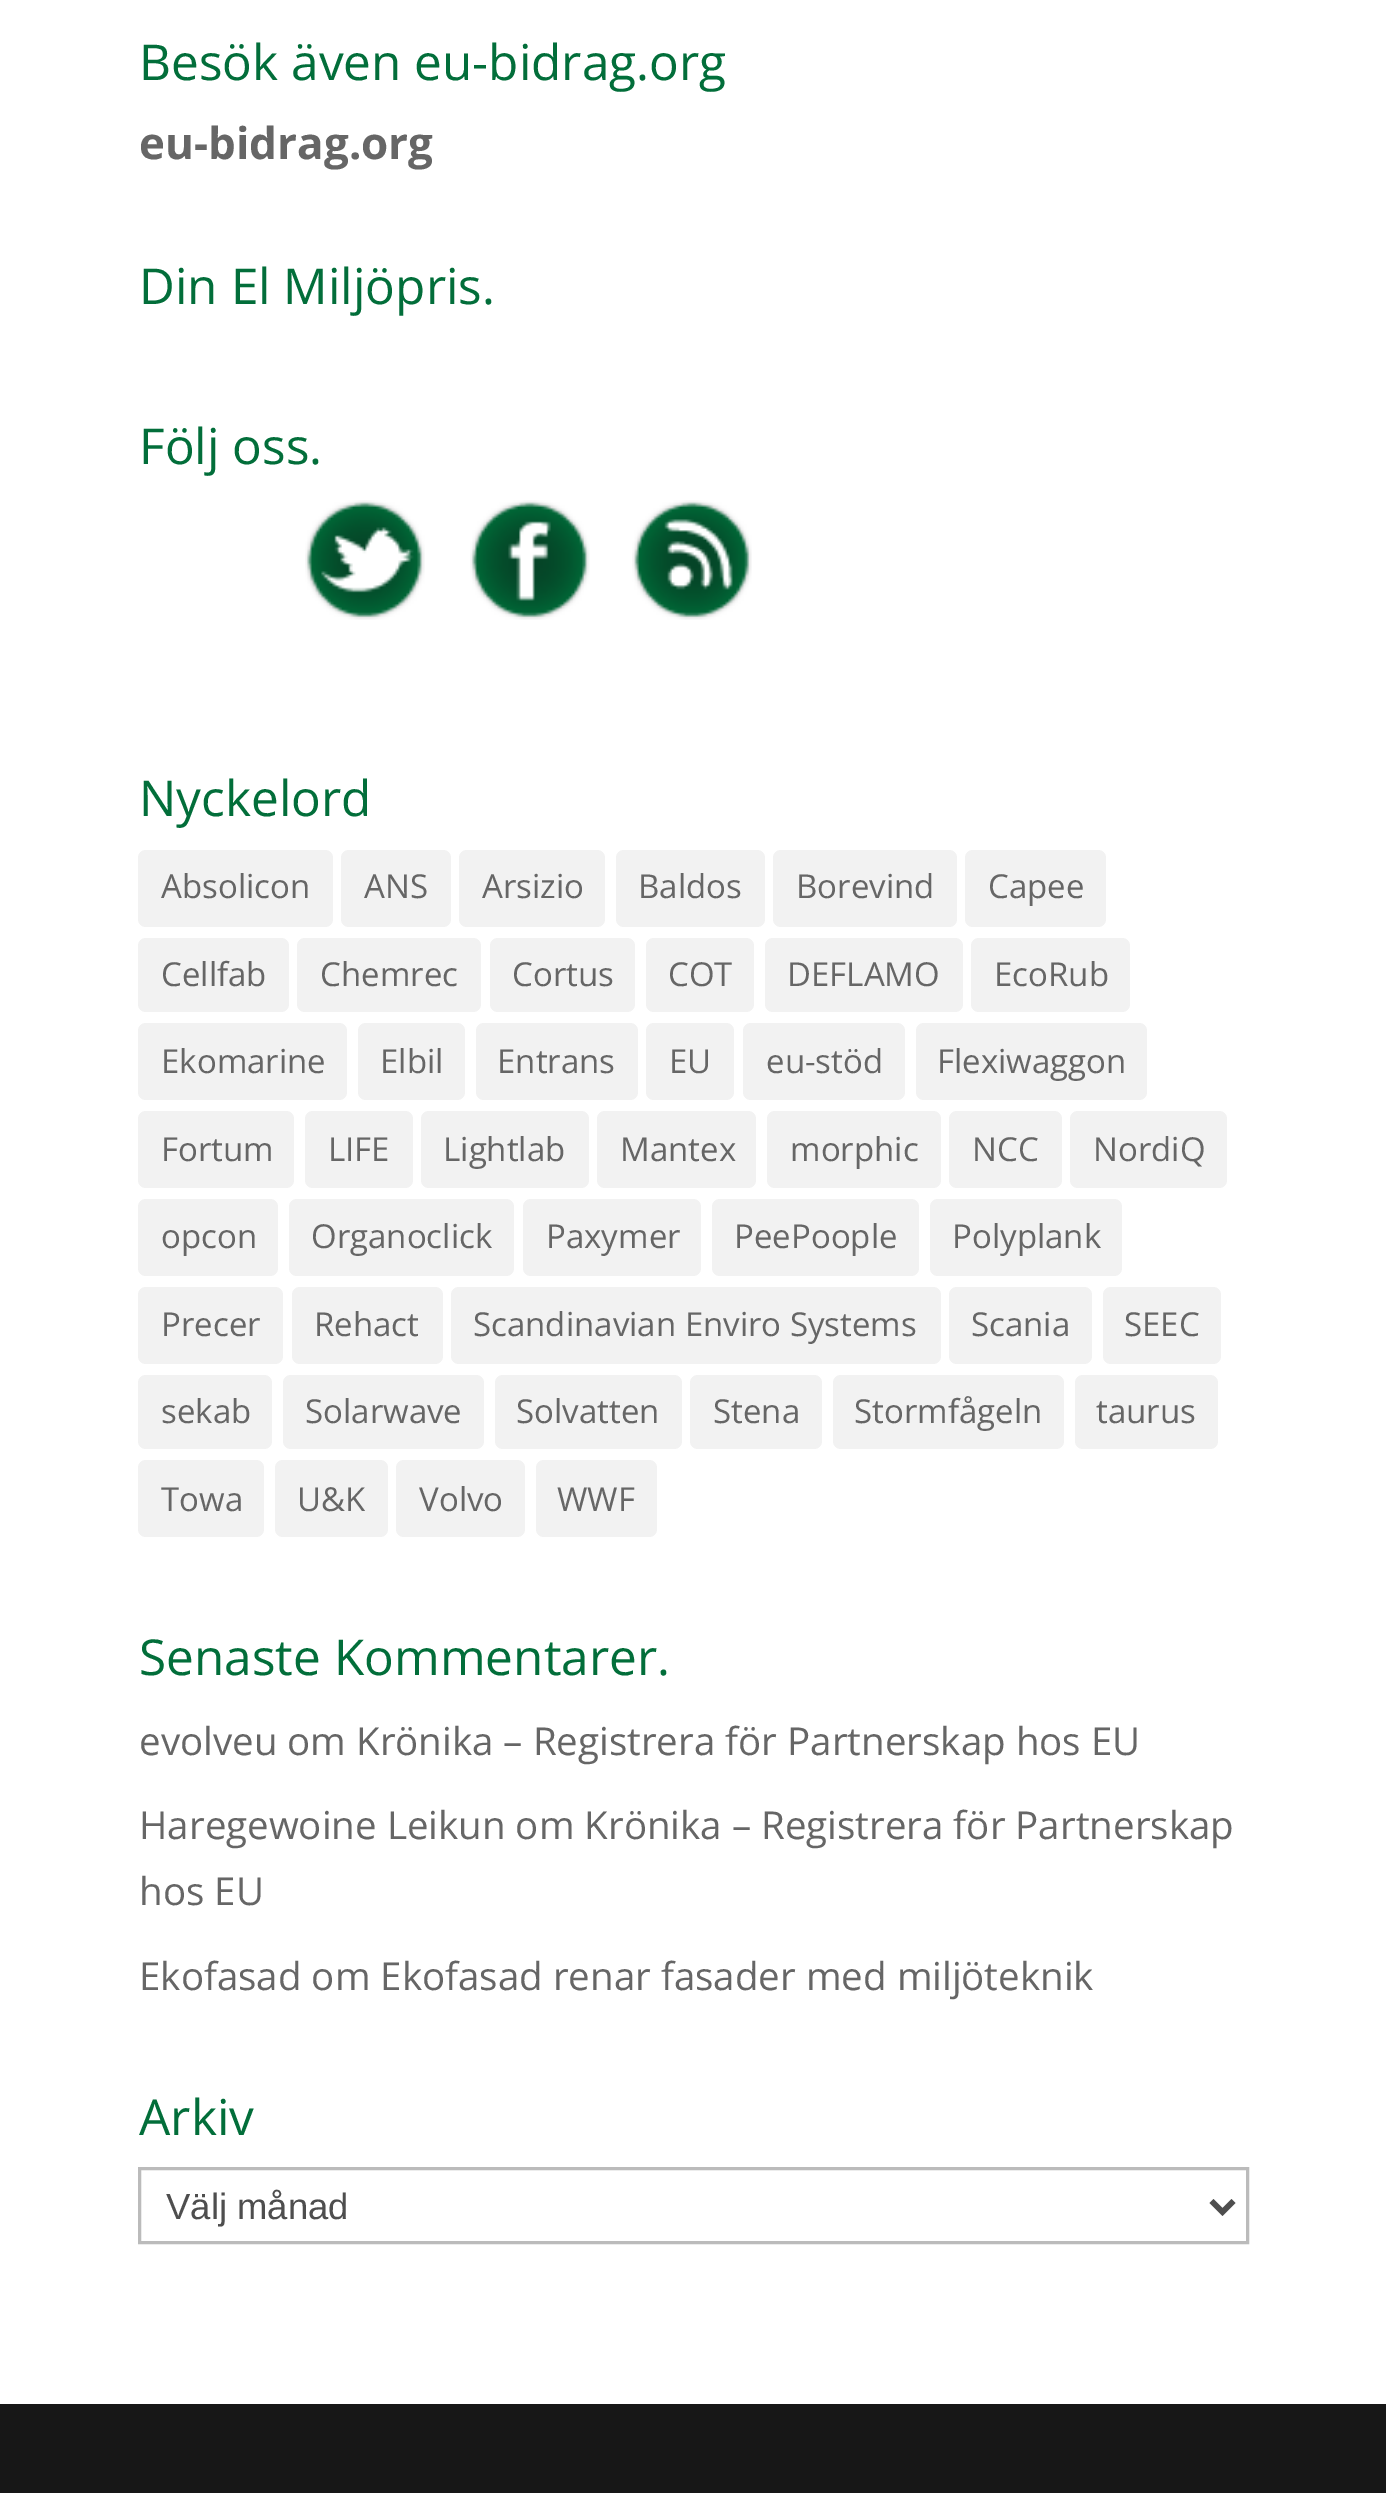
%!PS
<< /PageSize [1386 2493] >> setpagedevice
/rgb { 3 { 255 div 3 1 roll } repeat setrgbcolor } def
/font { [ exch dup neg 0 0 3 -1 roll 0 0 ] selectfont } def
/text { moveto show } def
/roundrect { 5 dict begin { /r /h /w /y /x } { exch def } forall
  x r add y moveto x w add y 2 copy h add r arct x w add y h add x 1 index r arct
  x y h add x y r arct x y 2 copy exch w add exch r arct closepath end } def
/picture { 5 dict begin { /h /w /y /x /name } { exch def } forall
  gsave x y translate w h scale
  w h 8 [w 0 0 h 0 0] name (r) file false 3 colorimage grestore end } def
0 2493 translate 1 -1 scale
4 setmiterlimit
255 255 255 rgb
0 0 1386 2493 rectfill
(img_01.rgb) 305 500 120 120 picture
(img_02.rgb) 470 500 120 120 picture
(img_03.rgb) 632 500 120 120 picture
242 242 242 rgb
138 850 195 77 8 roundrect fill
341 850 110 77 8 roundrect fill
459 850 146 77 8 roundrect fill
616 850 149 77 8 roundrect fill
773 850 184 77 8 roundrect fill
965 850 141 77 8 roundrect fill
138 938 151 74 8 roundrect fill
297 938 184 74 8 roundrect fill
490 938 145 74 8 roundrect fill
646 938 108 74 8 roundrect fill
765 938 198 74 8 roundrect fill
971 938 159 74 8 roundrect fill
138 1023 209 77 8 roundrect fill
358 1023 107 77 8 roundrect fill
476 1023 162 77 8 roundrect fill
646 1023 88 77 8 roundrect fill
743 1023 162 77 8 roundrect fill
916 1023 231 77 8 roundrect fill
138 1111 156 77 8 roundrect fill
305 1111 108 77 8 roundrect fill
421 1111 168 77 8 roundrect fill
597 1111 159 77 8 roundrect fill
767 1111 174 77 8 roundrect fill
949 1111 113 77 8 roundrect fill
1070 1111 157 77 8 roundrect fill
138 1199 140 77 8 roundrect fill
289 1199 225 77 8 roundrect fill
523 1199 178 77 8 roundrect fill
712 1199 207 77 8 roundrect fill
930 1199 192 77 8 roundrect fill
138 1287 145 77 8 roundrect fill
292 1287 151 77 8 roundrect fill
451 1287 490 77 8 roundrect fill
949 1287 143 77 8 roundrect fill
1103 1287 118 77 8 roundrect fill
138 1375 134 74 8 roundrect fill
283 1375 201 74 8 roundrect fill
495 1375 187 74 8 roundrect fill
690 1375 132 74 8 roundrect fill
833 1375 231 74 8 roundrect fill
1075 1375 143 74 8 roundrect fill
138 1460 126 77 8 roundrect fill
275 1460 113 77 8 roundrect fill
396 1460 129 77 8 roundrect fill
536 1460 121 77 8 roundrect fill
187 187 187 rgb
3 setlinewidth
139.5 2168.5 1108 74 rectstroke
78 78 78 rgb
5.5 setlinewidth
1211.5 2201 moveto 11 11 rlineto 11 -11 rlineto stroke
23 23 23 rgb
0 2404 1386 89 rectfill
/OpenSans-Regular 49.5 font
2 110 58 rgb
(Besök även eu-bidrag.org) 139 80 text
/OpenSans-Bold 44 font
102 102 102 rgb
(eu-bidrag.org) 139 159 text
/OpenSans-Regular 49.5 font
2 110 58 rgb
(Din El Miljöpris.) 139 304 text
(Följ oss.) 139 464 text
(Nyckelord) 139 816 text
/OpenSans-Regular 33 font
102 102 102 rgb
(Absolicon) 161 898 text
(ANS) 364 898 text
(Arsizio) 482 898 text
(Baldos) 638 898 text
(Borevind) 796 898 text
(Capee) 988 898 text
(Cellfab) 161 986 text
(Chemrec) 320 986 text
(Cortus) 512 986 text
(COT) 668 986 text
(DEFLAMO) 787 986 text
(EcoRub) 994 986 text
(Ekomarine) 161 1073 text
(Elbil) 380 1073 text
(Entrans) 497 1073 text
(EU) 669 1073 text
(eu-stöd) 766 1073 text
(Flexiwaggon) 937 1073 text
(Fortum) 161 1161 text
(LIFE) 328 1161 text
(Lightlab) 443 1161 text
(Mantex) 620 1161 text
(morphic) 790 1161 text
(NCC) 972 1161 text
(NordiQ) 1093 1161 text
(opcon) 161 1248 text
(Organoclick) 311 1248 text
(Paxymer) 546 1248 text
(PeePoople) 734 1248 text
(Polyplank) 952 1248 text
(Precer) 161 1336 text
(Rehact) 314 1336 text
(Scandinavian Enviro Systems) 473 1336 text
(Scania) 971 1336 text
(SEEC) 1124 1336 text
(sekab) 161 1423 text
(Solarwave) 305 1423 text
(Solvatten) 516 1423 text
(Stena) 713 1423 text
(Stormfågeln) 854 1423 text
(taurus) 1096 1423 text
(Towa) 161 1511 text
(U&K) 297 1511 text
(Volvo) 419 1511 text
(WWF) 557 1511 text
/OpenSans-Regular 49.5 font
2 110 58 rgb
(Senaste Kommentarer.) 139 1675 text
/OpenSans-Regular 38.5 font
102 102 102 rgb
(evolveu om Krönika – Registrera för Partnerskap hos EU) 139 1755 text
(Haregewoine Leikun om Krönika – Registrera för Partnerskap) 139 1839 text
(hos EU) 139 1905 text
(Ekofasad om Ekofasad renar fasader med miljöteknik) 139 1990 text
/OpenSans-Regular 49.5 font
2 110 58 rgb
(Arkiv) 139 2135 text
/LiberationSans-Regular 36.5 font
78 78 78 rgb
(Välj månad) 166 2219 text
showpage
